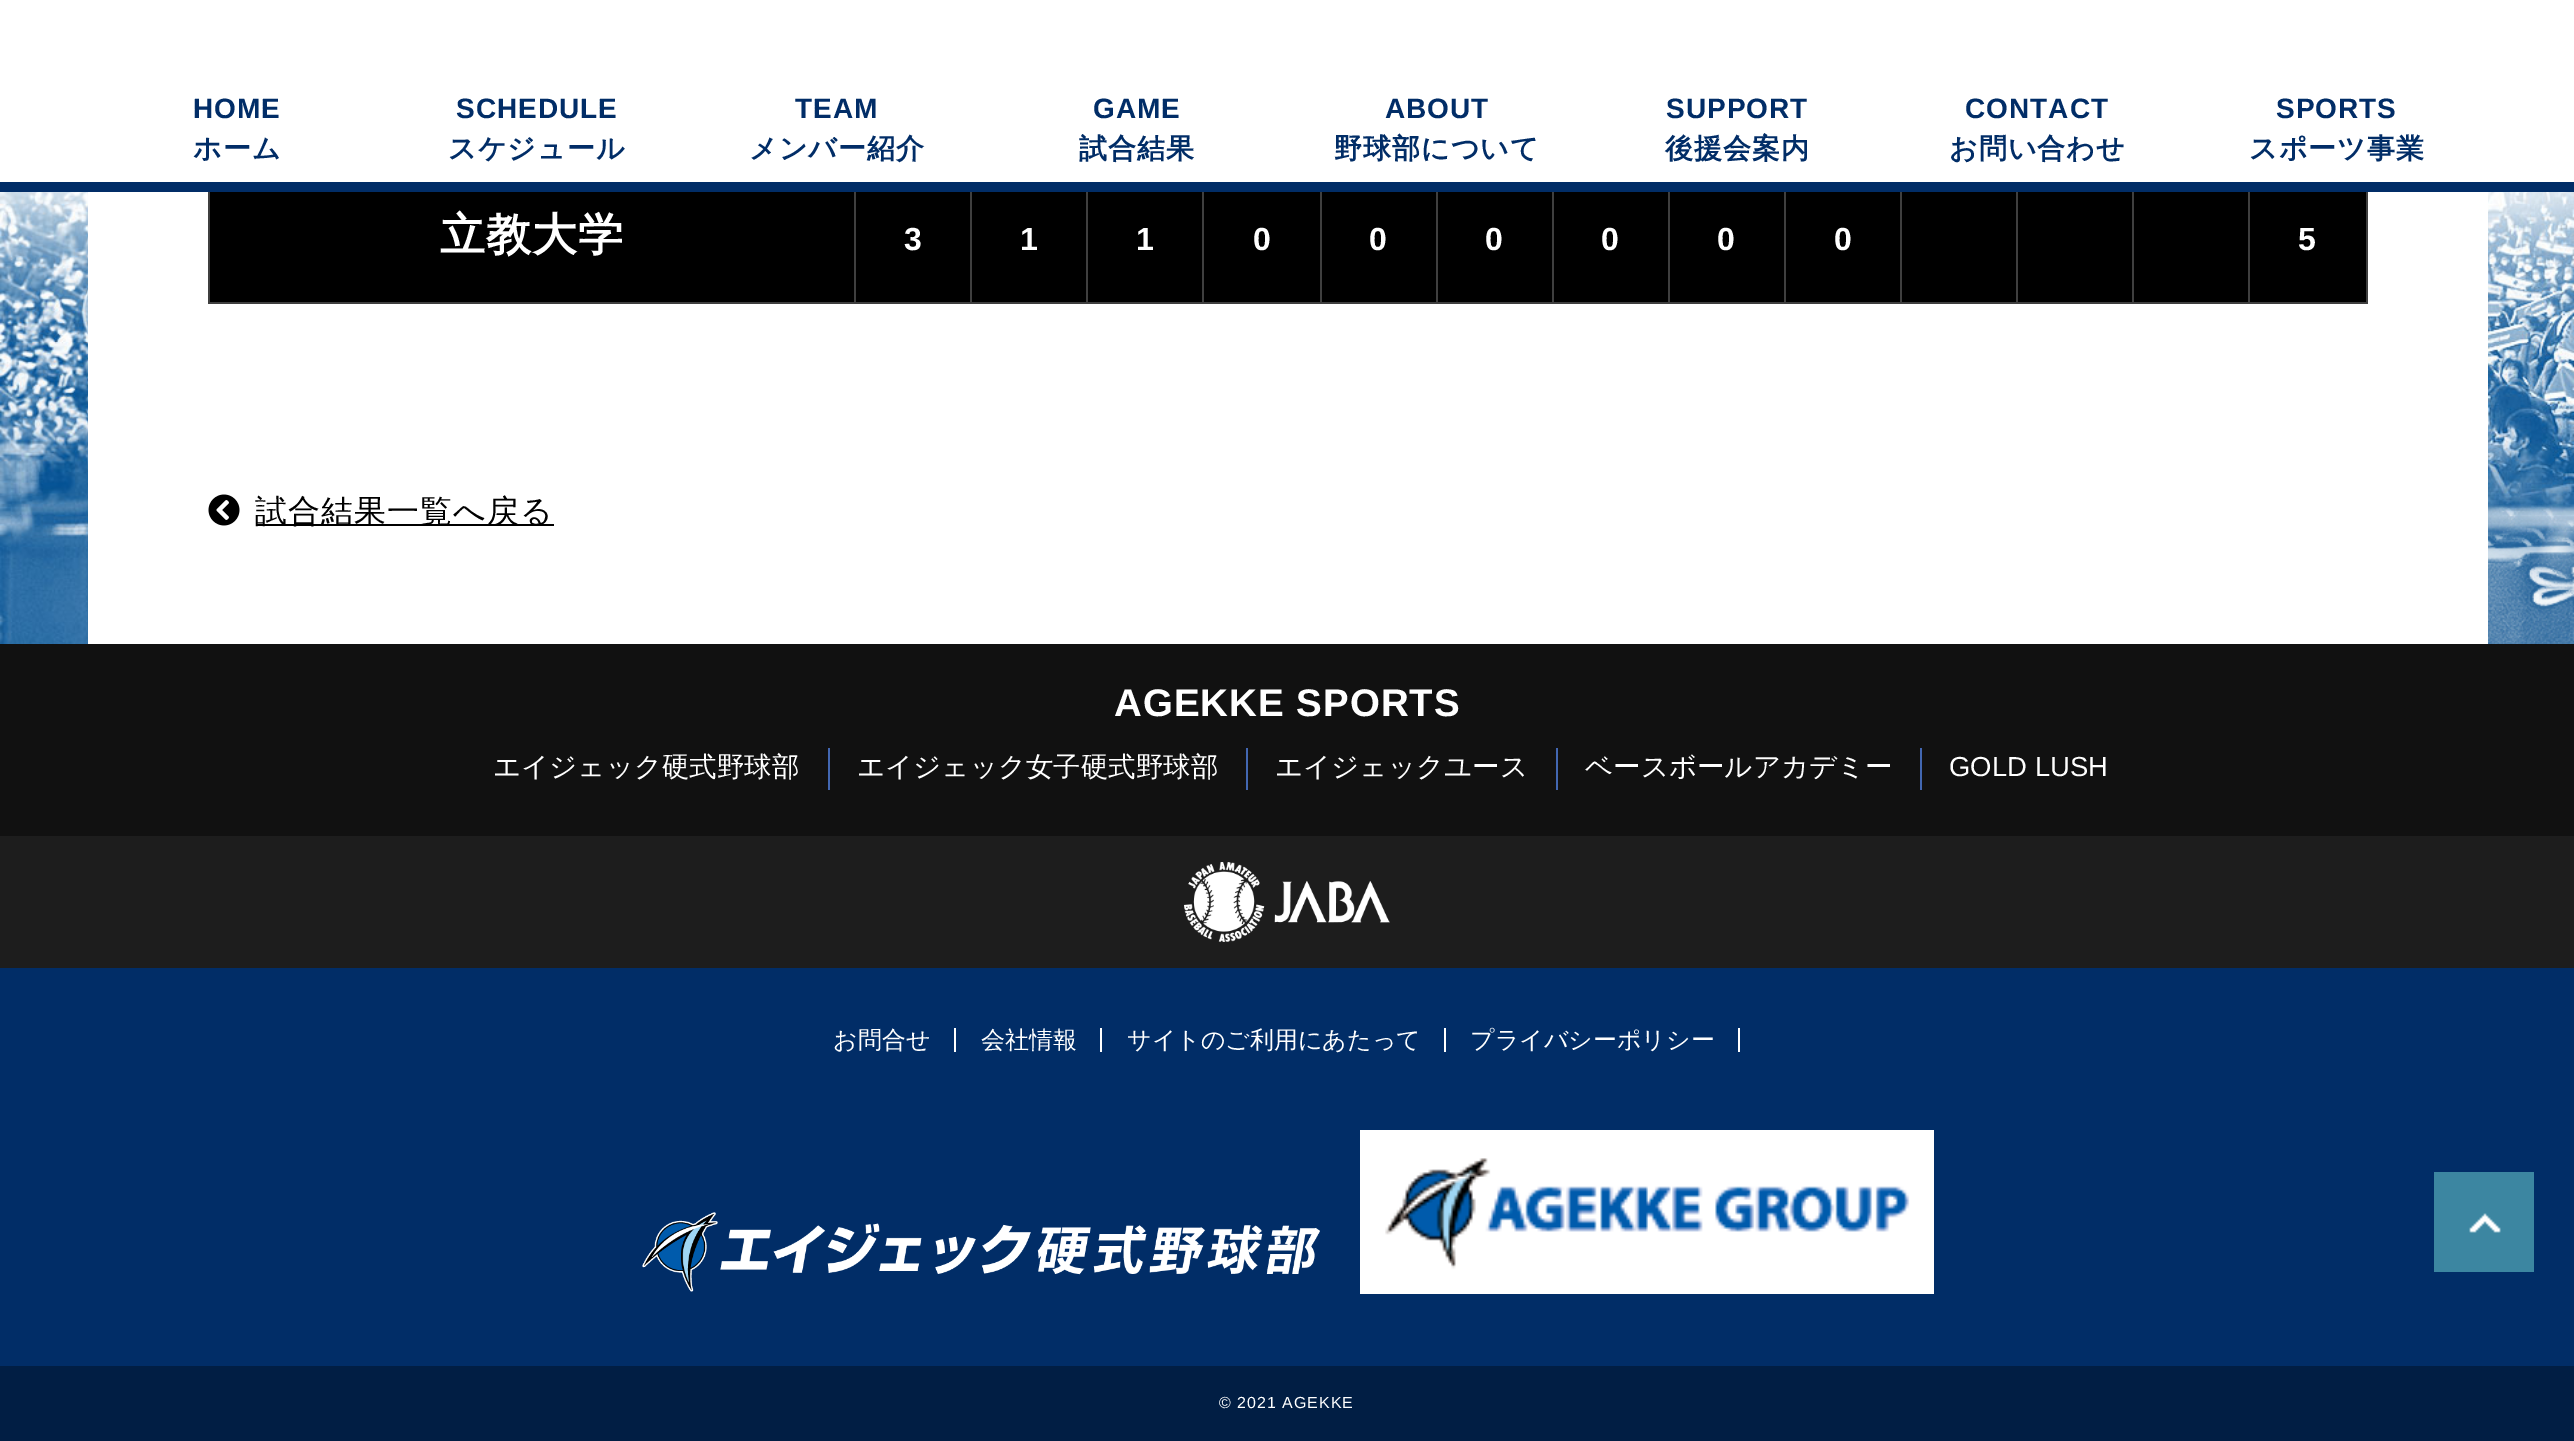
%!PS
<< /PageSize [2574 1441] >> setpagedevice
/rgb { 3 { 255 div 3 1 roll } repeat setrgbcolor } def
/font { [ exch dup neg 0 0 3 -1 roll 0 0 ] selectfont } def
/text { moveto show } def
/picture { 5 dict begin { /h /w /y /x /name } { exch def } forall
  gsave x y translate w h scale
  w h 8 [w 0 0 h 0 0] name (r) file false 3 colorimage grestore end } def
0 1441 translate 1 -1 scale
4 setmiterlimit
255 255 255 rgb
0 0 2574 1441 rectfill
(img_01.rgb) 0 192 2574 452 picture
1 45 103 rgb
0 182 2574 10 rectfill
255 255 255 rgb
88 192 2400 452 rectfill
0 0 0 rgb
210 192 644 110 rectfill
63 63 63 rgb
2366 192 2 112 rectfill
2248 302 120 2 rectfill
2248 192 2 112 rectfill
2132 302 118 2 rectfill
2132 192 2 112 rectfill
2016 302 118 2 rectfill
2016 192 2 112 rectfill
1900 302 118 2 rectfill
1900 192 2 112 rectfill
1784 302 118 2 rectfill
1784 192 2 112 rectfill
1668 302 118 2 rectfill
1668 192 2 112 rectfill
1552 302 118 2 rectfill
1552 192 2 112 rectfill
1436 302 118 2 rectfill
1436 192 2 112 rectfill
1320 302 118 2 rectfill
1320 192 2 112 rectfill
1202 302 120 2 rectfill
1202 192 2 112 rectfill
1086 302 118 2 rectfill
1086 192 2 112 rectfill
970 302 118 2 rectfill
970 192 2 112 rectfill
854 302 118 2 rectfill
854 192 2 112 rectfill
208 302 648 2 rectfill
208 192 2 112 rectfill
0 0 0 rgb
856 192 114 110 rectfill
972 192 114 110 rectfill
1088 192 114 110 rectfill
1204 192 116 110 rectfill
1322 192 114 110 rectfill
1438 192 114 110 rectfill
1554 192 114 110 rectfill
1670 192 114 110 rectfill
1786 192 114 110 rectfill
1902 192 114 110 rectfill
2018 192 114 110 rectfill
2134 192 114 110 rectfill
2250 192 116 110 rectfill
(img_02.rgb) 208 494 32 32 picture
256 524 298 2 rectfill
17 17 17 rgb
0 644 2574 192 rectfill
66 103 178 rgb
828 748 2 42 rectfill
1246 748 2 42 rectfill
1556 748 2 42 rectfill
1920 748 2 42 rectfill
29 29 29 rgb
0 836 2574 132 rectfill
(img_03.rgb) 1184 862 206 80 picture
1 45 103 rgb
0 968 2574 398 rectfill
255 255 255 rgb
954 1028 2 24 rectfill
1100 1028 2 24 rectfill
1444 1028 2 24 rectfill
1738 1028 2 24 rectfill
(img_04.rgb) 642 1212 678 80 picture
(img_05.rgb) 1360 1130 574 164 picture
60 134 161 rgb
2434 1172 100 100 rectfill
(img_06.rgb) 2469 1213 32 20 picture
1 30 68 rgb
0 1366 2574 75 rectfill
/LiberationSans-Bold 28 font
1 45 103 rgb
193 118 moveto 1 0 (HOME) ashow
/WenQuanYiZenHei-Bold 28 font
193 158 moveto 1 0 (ホーム) ashow
/LiberationSans-Bold 28 font
456 118 moveto 1 0 (SCHEDULE) ashow
/WenQuanYiZenHei-Bold 28 font
448 158 moveto 1 0 (スケジュール) ashow
/LiberationSans-Bold 28 font
795 118 moveto 1 0 (TEAM) ashow
/WenQuanYiZenHei-Bold 28 font
749 158 moveto 1 0 (メンバー紹介) ashow
/LiberationSans-Bold 28 font
1093 118 moveto 1 0 (GAME) ashow
/WenQuanYiZenHei-Bold 28 font
1079 158 moveto 1 0 (試合結果) ashow
/LiberationSans-Bold 28 font
1385 118 moveto 1 0 (ABOUT) ashow
/WenQuanYiZenHei-Bold 28 font
1334 158 moveto 1 0 (野球部について) ashow
/LiberationSans-Bold 28 font
1666 118 moveto 1 0 (SUPPORT) ashow
/WenQuanYiZenHei-Bold 28 font
1665 158 moveto 1 0 (後援会案内) ashow
/LiberationSans-Bold 28 font
1965 118 moveto 1 0 (CONTACT) ashow
/WenQuanYiZenHei-Bold 28 font
1949 158 moveto 1 0 (お問い合わせ) ashow
/LiberationSans-Bold 28 font
2276 118 moveto 1 0 (SPORTS) ashow
/WenQuanYiZenHei-Bold 28 font
2249 158 moveto 1 0 (スポーツ事業) ashow
/WenQuanYiZenHei-Bold 45 font
255 255 255 rgb
440 250 moveto 1 0 (立教大学) ashow
/LiberationSans-Bold 32 font
904 250 moveto 1 0 (3) ashow
1020 250 moveto 1 0 (1) ashow
1136 250 moveto 1 0 (1) ashow
1253 250 moveto 1 0 (0) ashow
1369 250 moveto 1 0 (0) ashow
1485 250 moveto 1 0 (0) ashow
1601 250 moveto 1 0 (0) ashow
1717 250 moveto 1 0 (0) ashow
1834 250 moveto 1 0 (0) ashow
2298 250 moveto 1 0 (5) ashow
/WenQuanYiZenHei-Medium 32 font
0 0 0 rgb
255 522 moveto 1 0 (試合結果一覧へ戻る) ashow
/LiberationSans-Bold 38.5 font
255 255 255 rgb
1114 716 moveto 1 0 (AGEKKE SPORTS) ashow
/WenQuanYiZenHei-Medium 27.5 font
(エイジェック硬式野球部) 493 776 text
(エイジェック女子硬式野球部) 857 776 text
(エイジェックユース) 1275 776 text
(ベースボールアカデミー) 1585 776 text
/LiberationSans-Regular 27.5 font
(GOLD LUSH) 1949 776 text
/WenQuanYiZenHei-Medium 24 font
(お問合せ) 833 1048 text
(会社情報) 981 1048 text
(サイトのご利用にあたって) 1127 1048 text
(プライバシーポリシー) 1470 1048 text
/LiberationSans-Regular 16 font
1219 1408 moveto 1 0 (© 2021 AGEKKE) ashow
showpage
